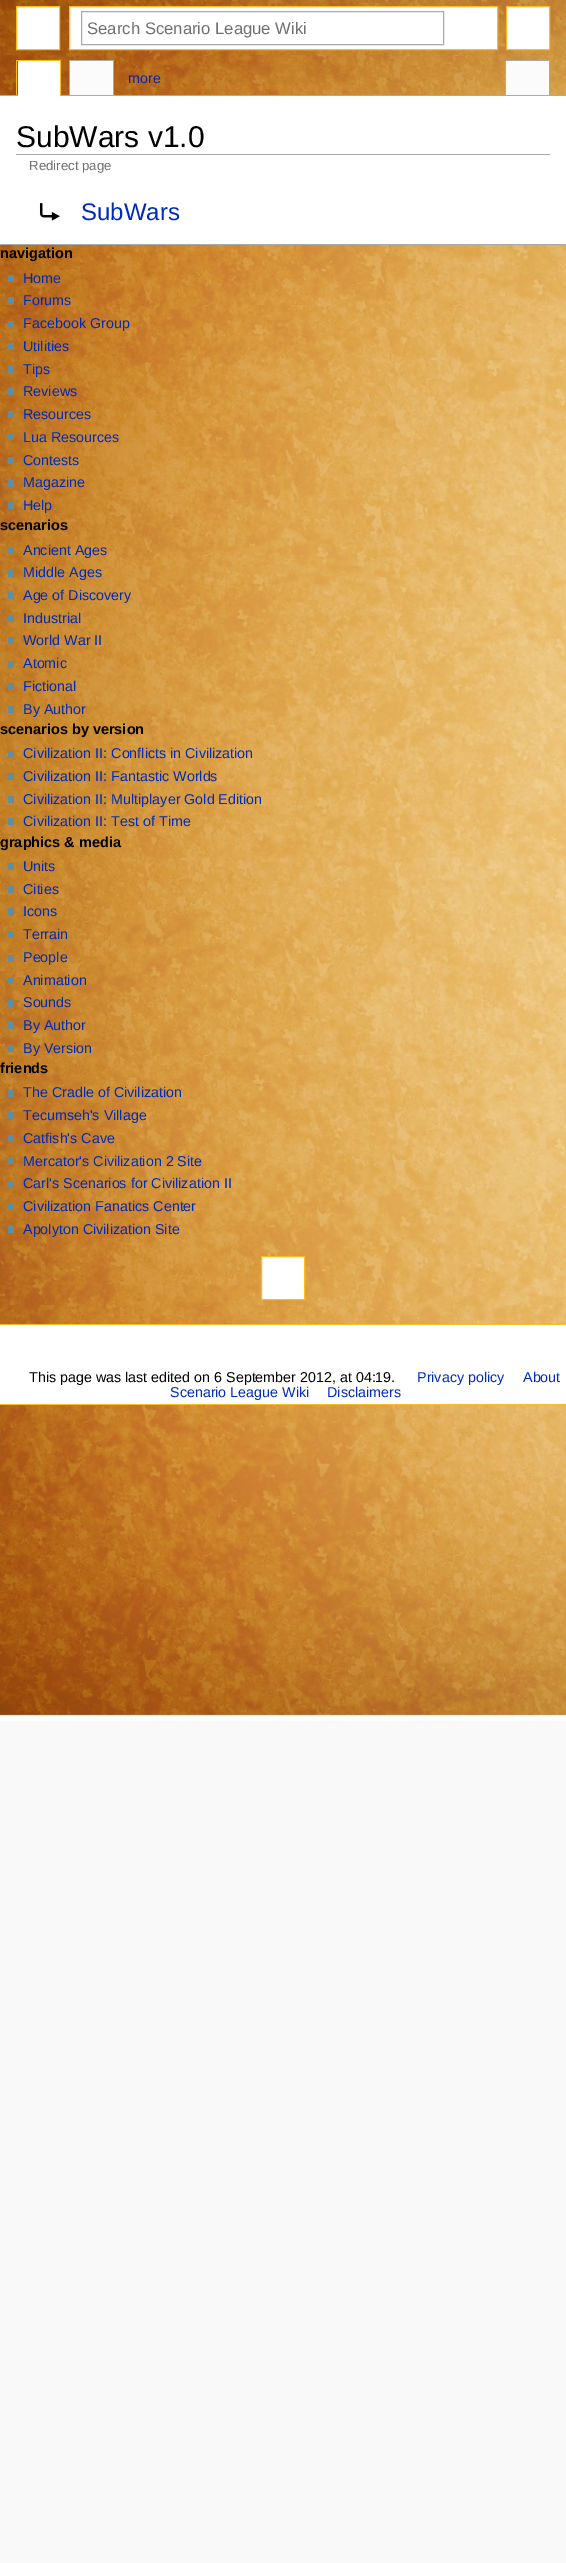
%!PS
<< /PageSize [566 2563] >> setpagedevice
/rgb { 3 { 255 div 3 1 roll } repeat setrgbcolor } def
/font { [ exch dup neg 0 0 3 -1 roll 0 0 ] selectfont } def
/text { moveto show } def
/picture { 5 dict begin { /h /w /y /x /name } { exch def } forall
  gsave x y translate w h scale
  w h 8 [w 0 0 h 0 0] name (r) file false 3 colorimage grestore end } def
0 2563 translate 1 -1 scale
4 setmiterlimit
249 249 249 rgb
0 0 566 2563 rectfill
(img_01.rgb) 0 0 566 1721 picture
255 255 255 rgb
16.5 6.5 moveto 43 0 rlineto 0 43 rlineto -43 0 rlineto closepath gsave fill grestore
250 189 35 rgb
stroke
255 255 255 rgb
506.5 6.5 moveto 43 0 rlineto 0 43 rlineto -43 0 rlineto closepath gsave fill grestore
250 189 35 rgb
stroke
255 255 255 rgb
69.5 6.5 moveto 428 0 rlineto 0 43 rlineto -428 0 rlineto closepath gsave fill grestore
250 189 35 rgb
stroke
170 170 170 rgb
81.5 11.5 362 33 rectstroke
99 140 156 rgb
8 275 6 7 rectfill
8 297 6 7 rectfill
8 321 6 7 rectfill
8 343 6 7 rectfill
8 366 6 7 rectfill
8 388 6 7 rectfill
8 411 6 7 rectfill
8 433 6 7 rectfill
8 457 6 7 rectfill
8 480 6 7 rectfill
8 502 6 7 rectfill
8 547 6 7 rectfill
8 570 6 7 rectfill
8 592 6 7 rectfill
8 615 6 7 rectfill
8 637 6 7 rectfill
8 661 6 7 rectfill
8 683 6 7 rectfill
8 706 6 7 rectfill
8 751 6 7 rectfill
8 773 6 7 rectfill
8 796 6 7 rectfill
8 818 6 7 rectfill
8 863 6 7 rectfill
8 886 6 7 rectfill
8 908 6 7 rectfill
8 931 6 7 rectfill
8 955 6 7 rectfill
8 977 6 7 rectfill
8 1000 6 7 rectfill
8 1022 6 7 rectfill
8 1045 6 7 rectfill
8 1090 6 7 rectfill
8 1112 6 7 rectfill
8 1135 6 7 rectfill
8 1157 6 7 rectfill
8 1181 6 7 rectfill
8 1203 6 7 rectfill
8 1226 6 7 rectfill
250 189 35 rgb
16 60 45 1 rectfill
60 60 1 36 rectfill
16 60 1 36 rectfill
170 170 170 rgb
69 60 45 1 rectfill
113 60 1 36 rectfill
69 60 1 36 rectfill
505 60 45 1 rectfill
549 60 1 36 rectfill
505 60 1 36 rectfill
0 95 566 1 rectfill
255 255 255 rgb
18 61 42 35 rectfill
251 251 251 rgb
70 61 43 34 rectfill
506 61 43 34 rectfill
255 255 255 rgb
261.5 1256.5 moveto 43 0 rlineto 0 43 rlineto -43 0 rlineto closepath gsave fill grestore
250 189 35 rgb
stroke
255 255 255 rgb
0 96 566 148 rectfill
170 170 170 rgb
0 244 566 1 rectfill
16 154 534 1 rectfill
(img_02.rgb) 39 203 21 18 picture
255 255 255 rgb
0 1325 566 79 rectfill
250 189 35 rgb
0 1324 566 1 rectfill
0 1404 566 1 rectfill
/LiberationSans-Regular 16.7 font
112 112 112 rgb
(Search Scenario League Wiki) 87 34 text
/LiberationSans-Bold 14.5 font
0 0 0 rgb
(navigation) 0 258 text
/LiberationSans-Regular 14.3 font
0 43 184 rgb
(Home) 23 283 text
(Forums) 23 305 text
(Facebook Group) 23 328 text
(Utilities) 23 351 text
(Tips) 23 374 text
(Reviews) 23 396 text
(Resources) 23 419 text
(Lua Resources) 23 442 text
(Contests) 23 465 text
(Magazine) 23 487 text
(Help) 23 510 text
/LiberationSans-Bold 14.5 font
0 0 0 rgb
(scenarios) 0 530 text
/LiberationSans-Regular 14.3 font
0 43 184 rgb
(Ancient Ages) 23 555 text
(Middle Ages) 23 577 text
(Age of Discovery) 23 600 text
(Industrial) 23 623 text
(World War II) 23 645 text
(Atomic) 23 668 text
(Fictional) 23 691 text
(By Author) 23 714 text
/LiberationSans-Bold 14.5 font
0 0 0 rgb
(scenarios by version) 0 734 text
/LiberationSans-Regular 14.3 font
0 43 184 rgb
(Civilization II: Conflicts in Civilization) 23 758 text
(Civilization II: Fantastic Worlds) 23 781 text
(Civilization II: Multiplayer Gold Edition) 23 804 text
(Civilization II: Test of Time) 23 826 text
/LiberationSans-Bold 14.5 font
0 0 0 rgb
(graphics & media) 0 847 text
/LiberationSans-Regular 14.3 font
0 43 184 rgb
(Units) 23 871 text
(Cities) 23 894 text
(Icons) 23 916 text
(Terrain) 23 939 text
(People) 23 962 text
(Animation) 23 985 text
(Sounds) 23 1007 text
(By Author) 23 1030 text
(By Version) 23 1053 text
/LiberationSans-Bold 14.5 font
0 0 0 rgb
(friends) 0 1073 text
/LiberationSans-Regular 14.3 font
0 43 184 rgb
(The Cradle of Civilization) 23 1097 text
(Tecumseh's Village) 23 1120 text
(Catfish's Cave) 23 1143 text
(Mercator's Civilization 2 Site) 23 1166 text
(Carl's Scenarios for Civilization II) 23 1188 text
(Civilization Fanatics Center) 23 1211 text
(Apolyton Civilization Site) 23 1234 text
(more) 128 83 text
/LiberationSans-Regular 30 font
0 0 0 rgb
(SubWars v1.0) 16 147 text
/LiberationSans-Regular 13.25 font
112 112 112 rgb
(Redirect page) 29 170 text
/LiberationSans-Regular 24 font
0 43 184 rgb
(SubWars) 81 220 text
/LiberationSans-Regular 14.3 font
0 0 0 rgb
(This page was last edited on 6 September 2012, at 04:19.) 29 1382 text
0 43 184 rgb
(Privacy policy) 417 1382 text
(About) 523 1382 text
(Scenario League Wiki) 170 1397 text
(Disclaimers) 327 1397 text
showpage
